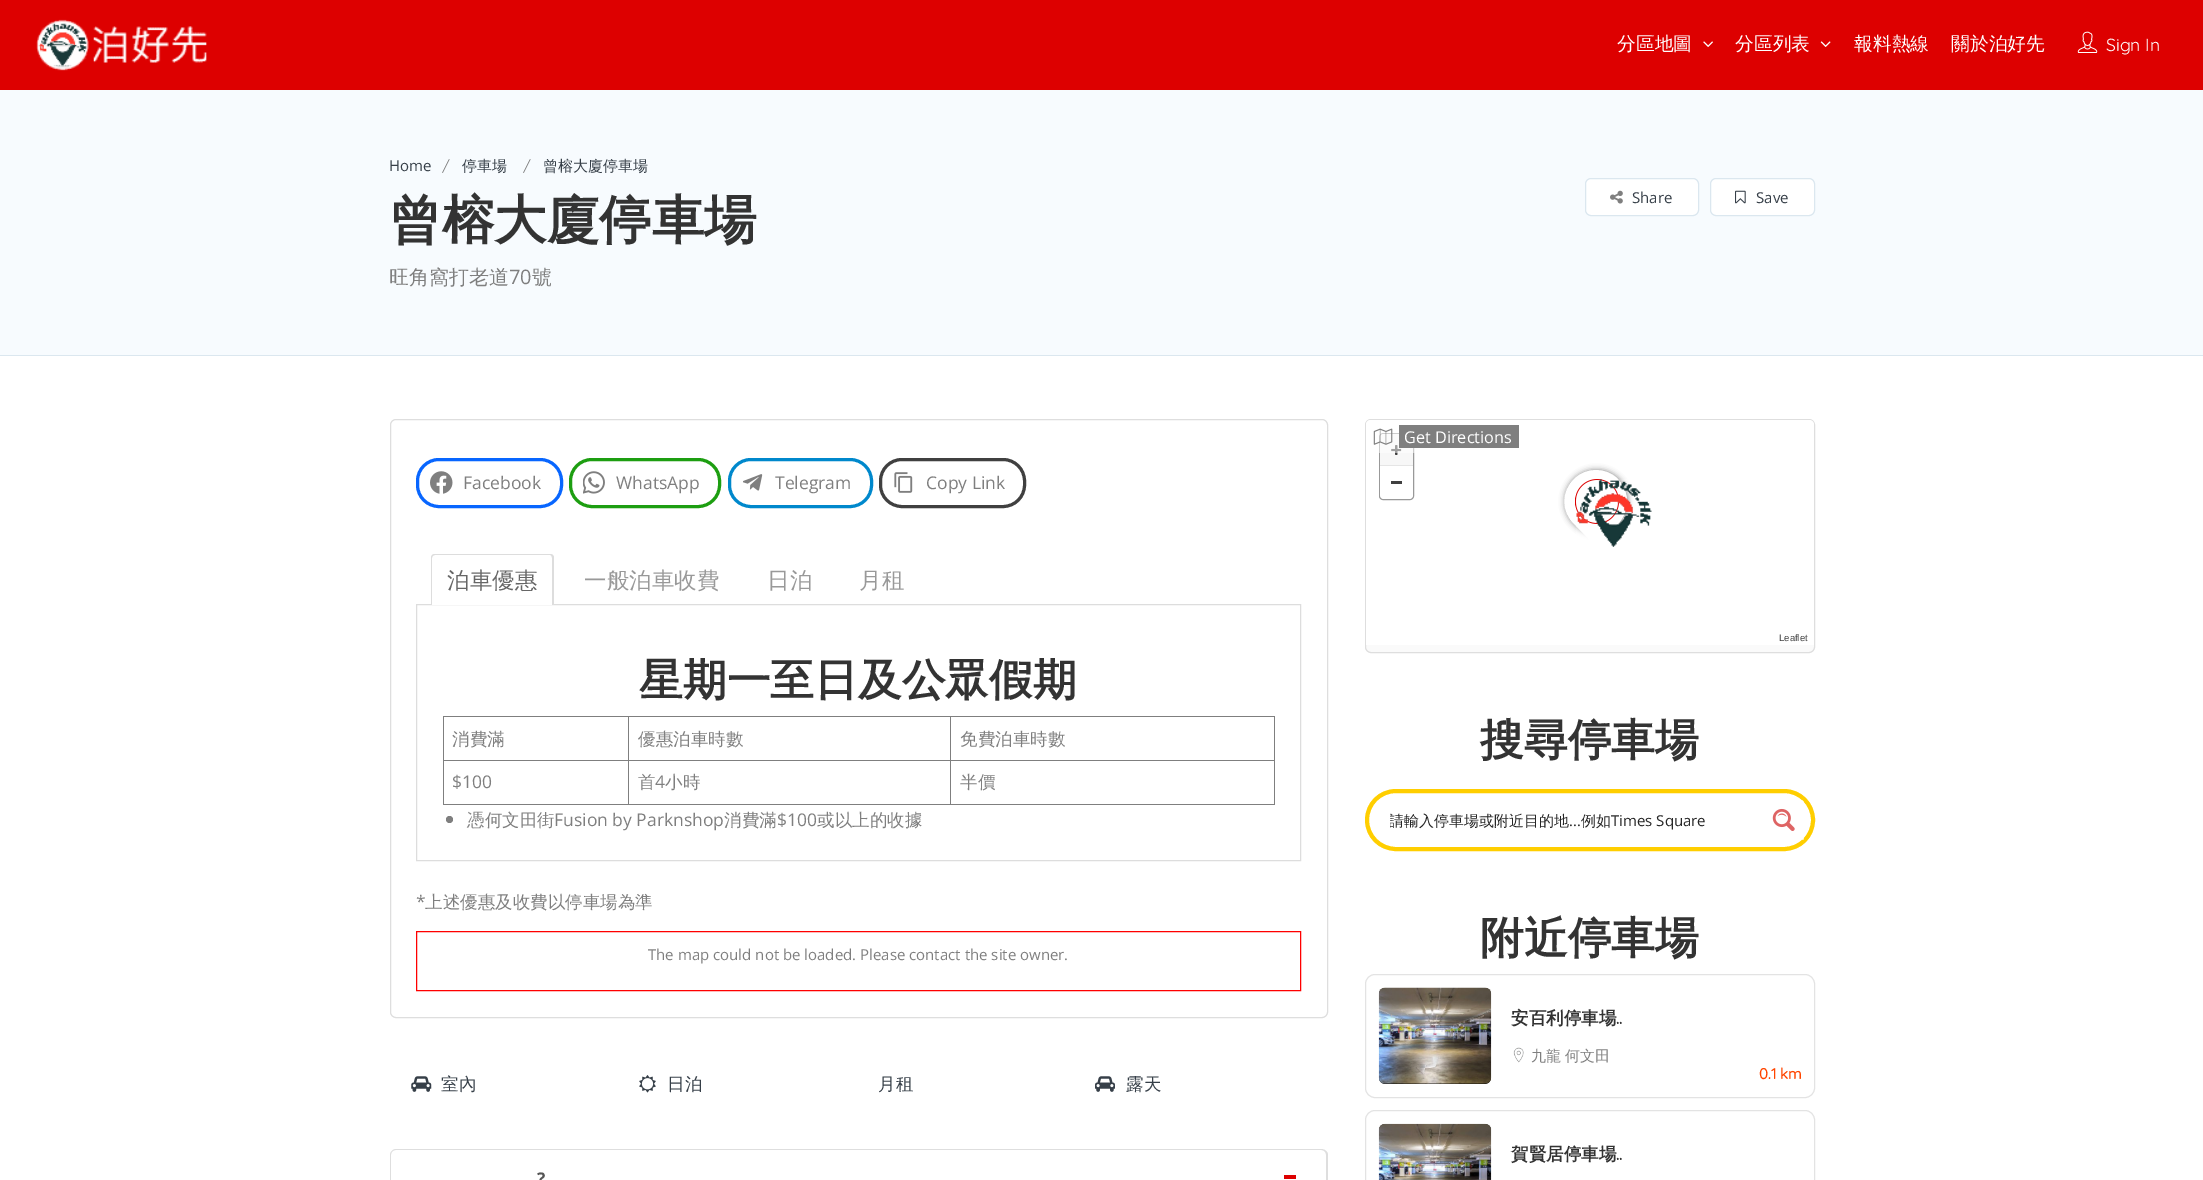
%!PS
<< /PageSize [2203 1180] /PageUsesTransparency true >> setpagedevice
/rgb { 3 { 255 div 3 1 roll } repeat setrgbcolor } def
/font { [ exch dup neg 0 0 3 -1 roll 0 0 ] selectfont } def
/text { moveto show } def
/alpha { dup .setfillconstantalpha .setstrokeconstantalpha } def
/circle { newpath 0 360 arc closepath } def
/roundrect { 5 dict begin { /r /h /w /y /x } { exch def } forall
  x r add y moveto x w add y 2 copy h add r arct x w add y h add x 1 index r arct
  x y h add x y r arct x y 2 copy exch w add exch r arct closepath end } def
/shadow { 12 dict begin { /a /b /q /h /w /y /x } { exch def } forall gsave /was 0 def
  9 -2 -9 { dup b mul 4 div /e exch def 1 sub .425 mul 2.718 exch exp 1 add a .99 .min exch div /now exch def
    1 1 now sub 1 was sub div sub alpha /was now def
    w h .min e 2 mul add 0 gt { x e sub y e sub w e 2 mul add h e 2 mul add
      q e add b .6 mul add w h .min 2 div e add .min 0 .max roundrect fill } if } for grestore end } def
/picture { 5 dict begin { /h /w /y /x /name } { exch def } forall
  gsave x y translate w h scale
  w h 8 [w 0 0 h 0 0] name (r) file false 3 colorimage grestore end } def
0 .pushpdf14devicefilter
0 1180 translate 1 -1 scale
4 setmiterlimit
247 251 254 rgb
0 0 2203 1180 rectfill
221 0 0 rgb
0 0 2203 90 rectfill
(img_01.rgb) 36 19 171 52 picture
(img_02.rgb) 1703 41 10 6 picture
(img_03.rgb) 1820 41 11 6 picture
(img_04.rgb) 2077 31 21 22 picture
219 231 239 rgb
0 355 2203 1 rectfill
255 255 255 rgb
1585.5 178.5 113 37 5.5 roundrect gsave fill grestore
219 231 239 rgb
stroke
(img_05.rgb) 1610 190 13 14 picture
255 255 255 rgb
1710.5 178.5 104 37 5.5 roundrect gsave fill grestore
219 231 239 rgb
stroke
(img_06.rgb) 1735 190 11 14 picture
255 255 255 rgb
0 356 2203 824 rectfill
222 222 222 rgb
390.5 419.5 937 598 5.5 roundrect stroke
8 102 255 rgb
3 setlinewidth
417.5 459.5 144 47 21.5 roundrect stroke
(img_07.rgb) 430 471 23 23 picture
29 158 17 rgb
570.5 459.5 149 47 21.5 roundrect stroke
(img_08.rgb) 583 471 22 23 picture
0 136 204 rgb
729.5 459.5 142 47 21.5 roundrect stroke
(img_09.rgb) 743 474 20 17 picture
64 64 64 rgb
880.5 459.5 144 47 21.5 roundrect stroke
(img_10.rgb) 894 472 19 21 picture
221 221 221 rgb
1 setlinewidth
416.5 604.5 884 256 rectstroke
255 255 255 rgb
435 554 moveto 115 0 rlineto 2 0 4 2 4 4 rcurveto 0 47 rlineto -123 0 rlineto 0 -47 rlineto 0 -2 2 -4 4 -4 rcurveto closepath fill
221 221 221 rgb
435 554 moveto 115 0 rlineto 2 0 4 1 4 4 rcurveto 0 47 rlineto -123 0 rlineto 0 -47 rlineto 0 -3 2 -4 4 -4 rcurveto closepath 435 555 moveto 115 0 rlineto 1 0 2 1 2 3 rcurveto 0 47 rlineto -120 0 rlineto 0 -47 rlineto 0 -2 2 -3 3 -3 rcurveto closepath eofill
127 127 127 rgb
950 716 325 1 rectfill
950 760 325 1 rectfill
1274 760 1 45 rectfill
950 804 325 1 rectfill
950 760 1 45 rectfill
628 760 323 1 rectfill
950 716 1 45 rectfill
628 716 323 1 rectfill
628 804 323 1 rectfill
628 760 1 45 rectfill
443 760 186 1 rectfill
628 716 1 45 rectfill
443 716 186 1 rectfill
443 804 186 1 rectfill
443 760 1 45 rectfill
443 716 1 45 rectfill
1274 716 1 45 rectfill
449.5 819.5 3.5 circle fill
255 0 0 rgb
416.5 931.5 884 59 rectstroke
(img_11.rgb) 411 1076 21 16 picture
(img_12.rgb) 639 1075 17 18 picture
(img_13.rgb) 1095 1076 20 16 picture
222 222 222 rgb
396 1149 moveto 925 0 rlineto 4 0 7 3 7 6 rcurveto 0 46 rlineto -938 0 rlineto 0 -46 rlineto 0 -3 3 -6 6 -6 rcurveto closepath 396 1150 moveto 925 0 rlineto 3 0 5 2 5 5 rcurveto 0 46 rlineto -935 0 rlineto 0 -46 rlineto 0 -3 2 -5 5 -5 rcurveto closepath eofill
221 0 0 rgb
1284 1175 12 4 rectfill
250 250 250 rgb
1365.5 419.5 449 233 5.5 roundrect gsave fill grestore
222 222 222 rgb
stroke
255 255 255 rgb
1371 420 moveto 438 0 rlineto 3 0 5 2 5 5 rcurveto 0 220 rlineto -448 0 rlineto 0 -220 rlineto 0 -3 2 -5 5 -5 rcurveto closepath fill
153 153 153 rgb
1379.5 433.5 34 66 3.5 roundrect stroke
247 247 247 rgb
1385 434 moveto 23 0 rlineto 3 0 5 2 5 5 rcurveto 0 27 rlineto -33 0 rlineto 0 -27 rlineto 0 -3 2 -5 5 -5 rcurveto closepath fill
(img_16.rgb) 1391 445 11 10 picture
0.5 alpha
255 255 255 rgb
1371 420 moveto 160 0 rlineto 0 33 rlineto -165 0 rlineto 0 -28 rlineto 0 -3 2 -5 5 -5 rcurveto closepath fill
1 alpha
(img_14.rgb) 1373 428 20 17 picture
127 127 127 rgb
1399 425 120 23 rectfill
0 0 0 rgb
1565 470 63 63 31.5 3 0.47 shadow
255 255 255 rgb
1574 479 moveto 12 -12 32 -12 44 0 rcurveto 12 13 12 32 0 45 rcurveto -22 22 rlineto -22 -22 rlineto -13 -13 -13 -32 0 -45 rcurveto closepath fill
221 0 0 rgb
1575.5 479.5 43 44 21.5 roundrect stroke
(img_15.rgb) 1576 479 76 68 picture
229 229 229 rgb
1380 465 33 1 rectfill
255 255 255 rgb
1380 466 moveto 33 0 rlineto 0 28 rlineto 0 3 -2 5 -5 5 rcurveto -23 0 rlineto -3 0 -5 -2 -5 -5 rcurveto closepath fill
64 64 64 rgb
1391 481 11 3 rectfill
255 206 0 rgb
4 setlinewidth
1367 791 446 58 29 roundrect stroke
gsave
1764 800 40 40 rectclip
0.64 alpha
255 255 255 rgb
1762 801 moveto 0 40 rlineto 40 0 rlineto -5 4 -11 7 -18 7 rcurveto -144 0 rlineto 0 -55 rlineto 144 0 rlineto 15 0 27 12 27 27 rcurveto 0 9 -3 16 -9 21 rcurveto 0 -40 rlineto closepath fill
grestore
(img_17.rgb) 1772 808 23 23 picture
227 227 227 rgb
1 setlinewidth
1365.5 974.5 449 123 9.5 roundrect stroke
0 0 0 rgb
1379 988 112 96 6 roundrect fill
(img_18.rgb) 1378 987 114 97 picture
(img_19.rgb) 1513 1047 11 16 picture
227 227 227 rgb
1365.5 1110.5 449 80 9.5 roundrect stroke
(img_20.rgb) 1378 1123 114 57 picture
/WenQuanYiZenHei-Medium 18.75 font
255 255 255 rgb
(分區地圖) 1617 50 text
(分區列表) 1735 50 text
(報料熱線) 1854 50 text
(關於泊好先) 1951 50 text
/Quicksand-Light 17.5 font
(Sign In) 2106 51 text
/OpenSans-Regular 15 font
54 63 72 rgb
(Home) 389 171 text
/Quicksand-Light 15 font
127 127 127 rgb
(/) 442 171 text
/WenQuanYiZenHei-Medium 15 font
54 63 72 rgb
(停車場) 462 171 text
/Quicksand-Light 15 font
127 127 127 rgb
(/) 523 171 text
/WenQuanYiZenHei-Medium 15 font
54 63 72 rgb
(曾榕大廈停車場) 543 171 text
/WenQuanYiZenHei-Bold 52.5 font
51 51 51 rgb
(曾榕大廈停車場) 389 238 text
/WenQuanYiZenHei-Medium 20 font
127 127 127 rgb
(旺角窩打老道) 389 284 text
/OpenSans-Regular 20 font
(70) 509 284 text
/WenQuanYiZenHei-Medium 20 font
(號) 532 284 text
/OpenSans-Regular 15 font
54 63 72 rgb
(Share) 1632 203 text
(Save) 1756 203 text
/OpenSans-Regular 17.5 font
127 127 127 rgb
(Facebook) 463 489 text
(WhatsApp) 616 489 text
(Telegram) 775 489 text
(Copy Link) 926 489 text
/WenQuanYiZenHei-Medium 22.5 font
102 102 102 rgb
(泊車優惠) 447 588 text
153 153 153 rgb
(一般泊車收費) 584 588 text
(日泊) 767 588 text
(月租) 859 588 text
/WenQuanYiZenHei-Bold 43.75 font
51 51 51 rgb
(星期一至日及公眾假期) 639 695 text
/WenQuanYiZenHei-Medium 17.5 font
127 127 127 rgb
(消費滿) 452 745 text
(優惠泊車時數) 638 745 text
(免費泊車時數) 960 745 text
/OpenSans-Regular 17.5 font
($100) 452 788 text
/WenQuanYiZenHei-Medium 17.5 font
(首) 638 788 text
/OpenSans-Regular 17.5 font
(4) 655 788 text
/WenQuanYiZenHei-Medium 17.5 font
(小時) 665 788 text
(半價) 960 788 text
(憑何文田街) 467 826 text
/OpenSans-Regular 17.5 font
(Fusion by Parknshop) 554 826 text
/WenQuanYiZenHei-Medium 17.5 font
(消費滿) 724 826 text
/OpenSans-Regular 17.5 font
($100) 777 826 text
/WenQuanYiZenHei-Medium 17.5 font
(或以上的收據) 817 826 text
/OpenSans-Regular 17.5 font
(*) 416 908 text
/WenQuanYiZenHei-Medium 17.5 font
(上述優惠及收費以停車場為準) 425 908 text
/OpenSans-Regular 15 font
(The map could not be loaded. Please contact the site owner.) 648 960 text
/WenQuanYiZenHei-Medium 17.5 font
54 63 72 rgb
(室內) 441 1090 text
(日泊) 667 1090 text
(月租) 878 1090 text
(露天) 1126 1090 text
/OpenSans-Bold 17.5 font
85 85 85 rgb
(?) 537 1185 text
/OpenSans-Regular 16.25 font
255 255 255 rgb
(Get Directions) 1404 443 text
/LiberationSans-Regular 9.5 font
64 64 64 rgb
(Leaflet) 1779 641 text
/WenQuanYiZenHei-Bold 43.75 font
51 51 51 rgb
(搜尋停車場) 1480 755 text
gsave
1390 810 363 23 rectclip
/WenQuanYiZenHei-Medium 15 font
38 38 38 rgb
(請輸入停車場或附近目的地) 1389 826 text
grestore
/OpenSans-Regular 15 font
38 38 38 rgb
(...) 1569 826 text
/WenQuanYiZenHei-Medium 15 font
(例如) 1581 826 text
/OpenSans-Regular 15 font
(Times Square) 1611 826 text
/WenQuanYiZenHei-Bold 43.75 font
51 51 51 rgb
(附近停車場) 1480 953 text
/WenQuanYiZenHei-Bold 17.5 font
(安百利停車場) 1511 1024 text
/Quicksand-Bold 17.5 font
(..) 1616 1024 text
/WenQuanYiZenHei-Medium 15 font
127 127 127 rgb
(九龍) 1531 1061 text
(何文田) 1565 1061 text
/Quicksand-Bold 15 font
255 69 0 rgb
(0.1 km) 1759 1079 text
/WenQuanYiZenHei-Bold 17.5 font
51 51 51 rgb
(賀賢居停車場) 1511 1160 text
/Quicksand-Bold 17.5 font
(..) 1616 1160 text
.poppdf14devicefilter showpage
